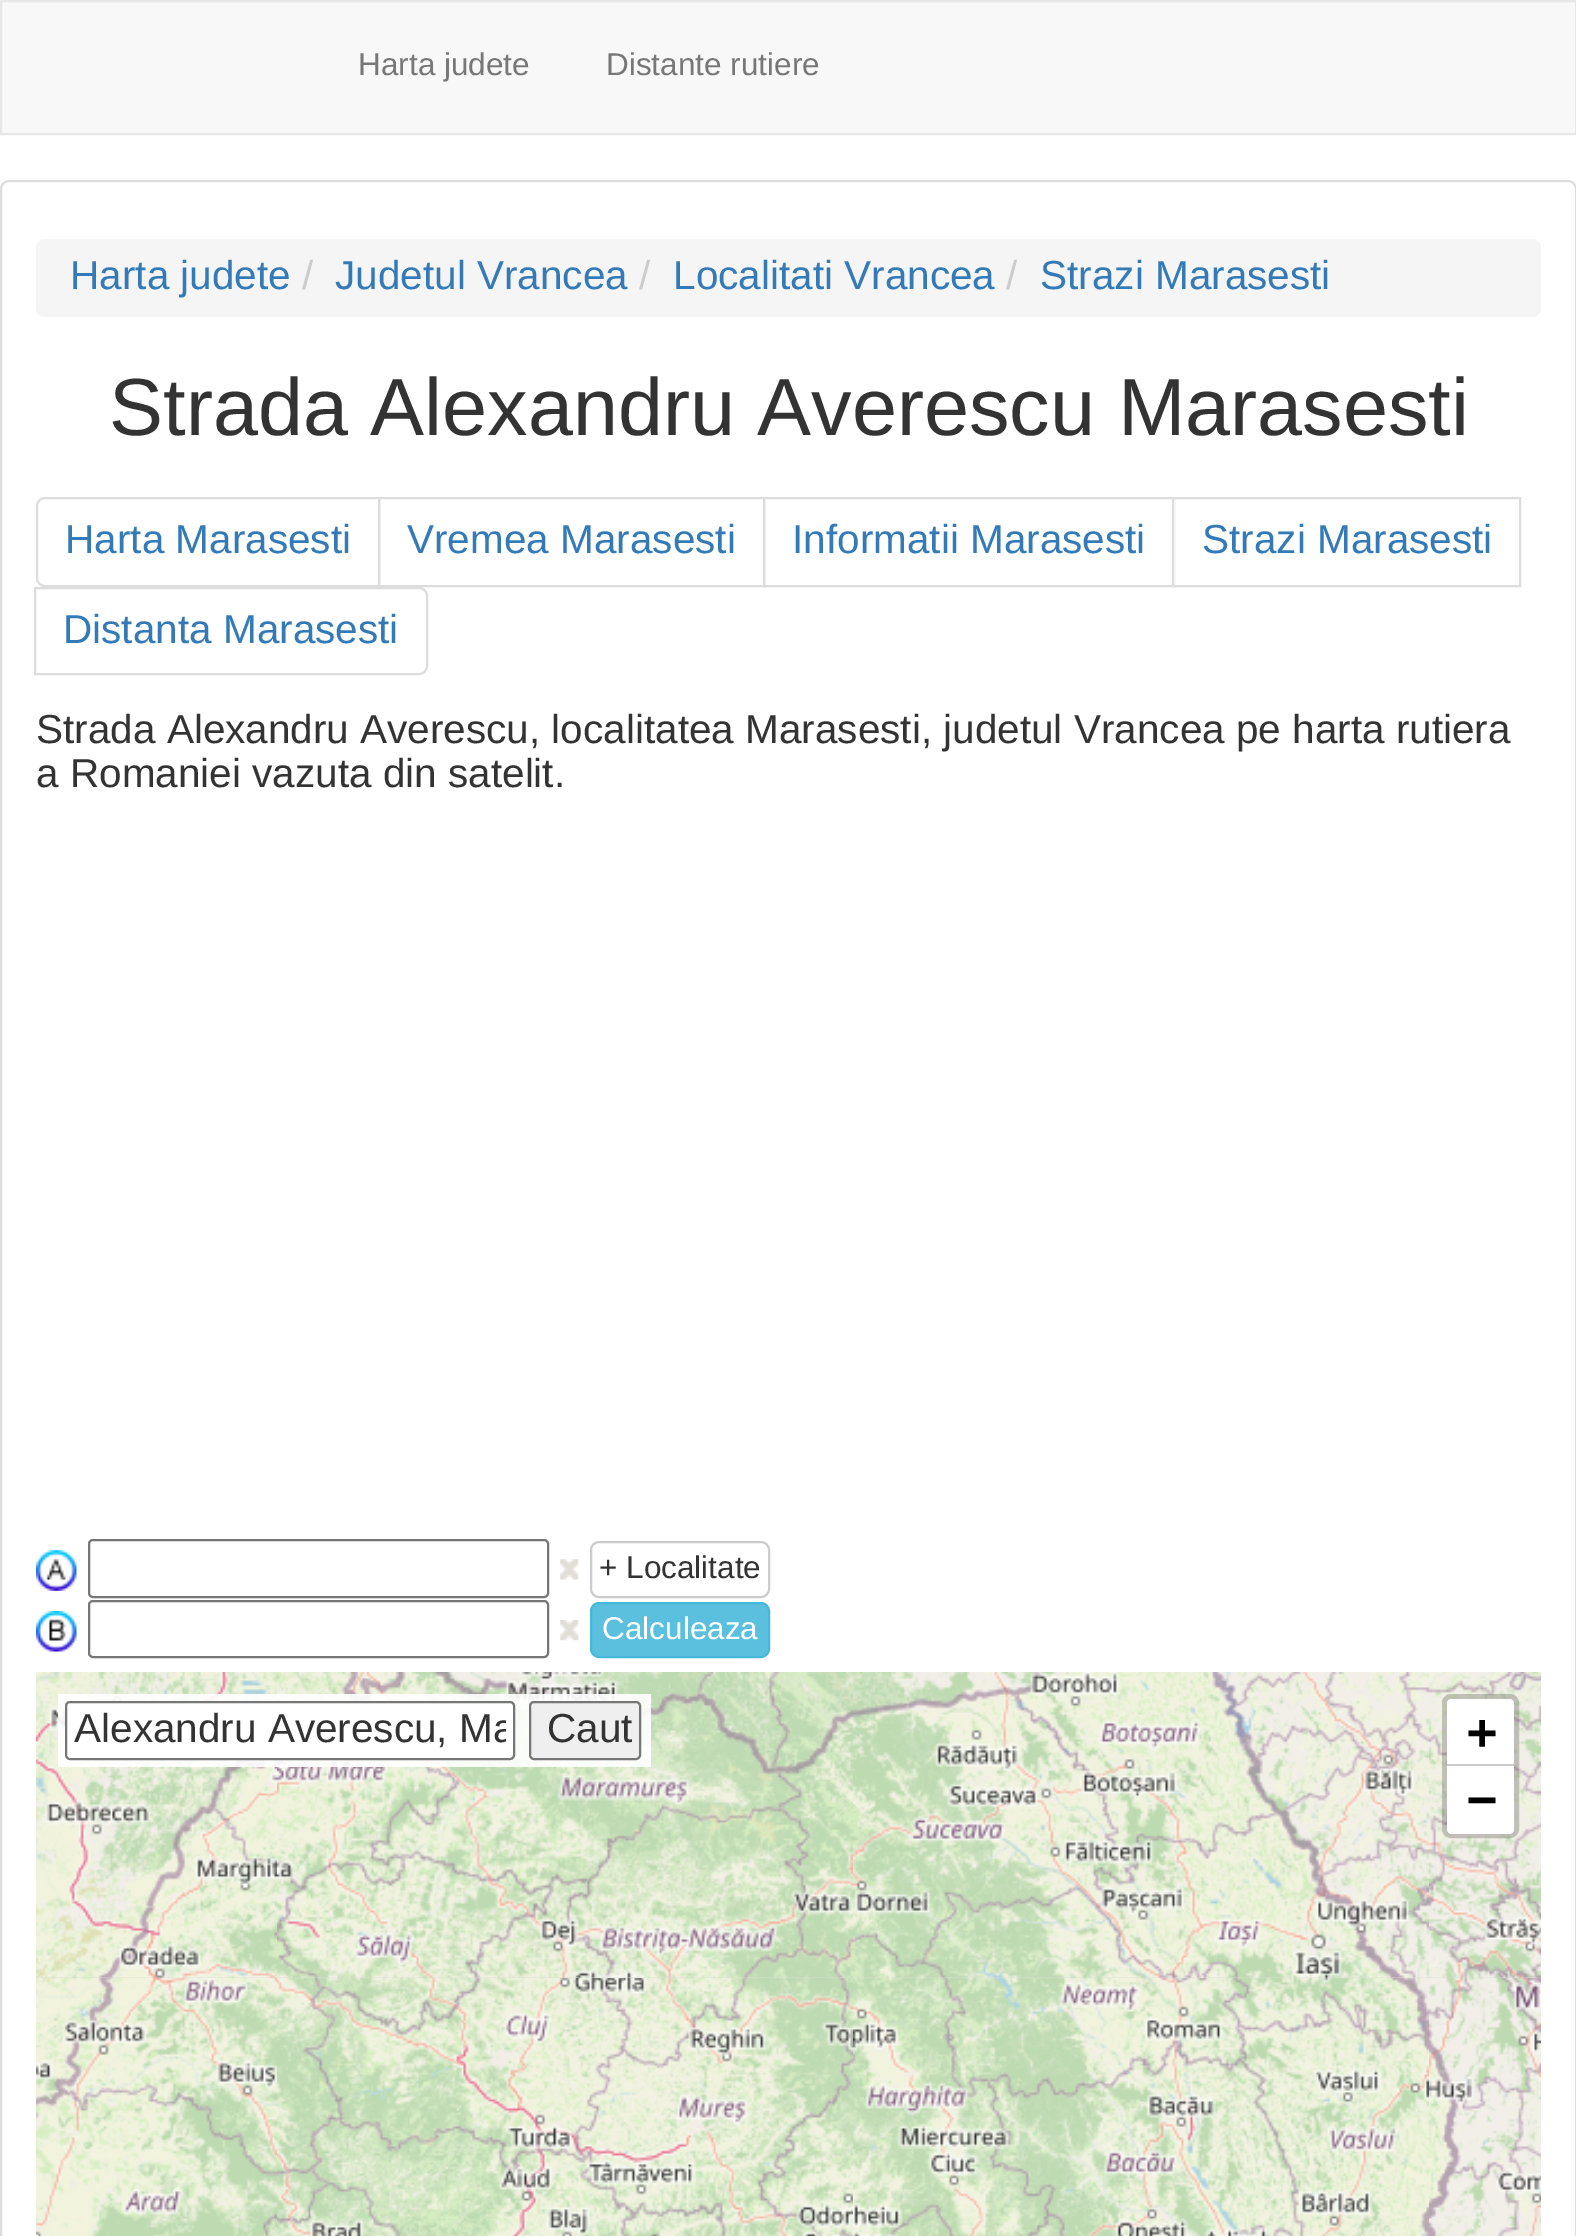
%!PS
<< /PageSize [1576 2236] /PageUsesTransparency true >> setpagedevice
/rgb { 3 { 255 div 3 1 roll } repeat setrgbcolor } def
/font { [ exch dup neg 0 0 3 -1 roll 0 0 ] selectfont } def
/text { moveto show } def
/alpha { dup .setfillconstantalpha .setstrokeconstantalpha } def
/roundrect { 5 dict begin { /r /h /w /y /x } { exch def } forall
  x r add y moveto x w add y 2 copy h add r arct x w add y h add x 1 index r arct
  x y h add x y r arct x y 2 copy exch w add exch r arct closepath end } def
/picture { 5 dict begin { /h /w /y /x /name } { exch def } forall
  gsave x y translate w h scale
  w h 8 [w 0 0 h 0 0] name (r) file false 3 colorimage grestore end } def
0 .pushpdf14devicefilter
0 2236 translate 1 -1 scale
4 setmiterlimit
255 255 255 rgb
0 0 1576 2236 rectfill
248 248 248 rgb
1 1 moveto 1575 0 rlineto 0 133 rlineto -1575 0 rlineto closepath gsave fill grestore
231 231 231 rgb
2 setlinewidth
stroke
221 221 221 rgb
1 181 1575 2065 8 roundrect stroke
245 245 245 rgb
36 239 1505 78 9 roundrect fill
221 221 221 rgb
45 498 moveto 334 0 rlineto 0 88 rlineto -334 0 rlineto -4.5 0 -8 -3.5 -8 -8 rcurveto 0 -72 rlineto 0 -4.5 3.5 -8 8 -8 rcurveto closepath stroke
379 498 385 88 rectstroke
764 498 410 88 rectstroke
255 255 255 rgb
1174 499 1 86 rectfill
221 221 221 rgb
1173 498 347 88 rectstroke
35 588 moveto 384 0 rlineto 4.5 0 8 3.5 8 8 rcurveto 0 70 rlineto 0 4.5 -3.5 8 -8 8 rcurveto -384 0 rlineto closepath stroke
(img_01.rgb) 36 1550 41 41 picture
118 118 118 rgb
89 1540 459 57 4 roundrect stroke
(img_02.rgb) 560 1559 19 21 picture
(img_03.rgb) 36 1611 41 41 picture
89 1601 459 56 4 roundrect stroke
(img_04.rgb) 560 1620 19 21 picture
204 204 204 rgb
591 1542 178 55 8 roundrect stroke
91 192 222 rgb
591 1603 178 54 8 roundrect gsave fill grestore
70 184 218 rgb
stroke
221 221 221 rgb
36 1977 1505 1 rectfill
(img_09.rgb) 36 1978 241 258 picture
(img_05.rgb) 36 1672 241 307 picture
(img_10.rgb) 277 1978 576 258 picture
(img_06.rgb) 277 1672 576 307 picture
0.9 alpha
255 255 255 rgb
58 1694 593 73 rectfill
1 alpha
66 1702 448 57 4 roundrect gsave fill grestore
118 118 118 rgb
stroke
239 239 239 rgb
530 1702 110 57 4 roundrect gsave fill grestore
118 118 118 rgb
stroke
(img_11.rgb) 853 1978 576 258 picture
(img_07.rgb) 853 1672 576 307 picture
(img_12.rgb) 1429 1978 112 258 picture
(img_08.rgb) 1429 1672 112 307 picture
0.2 alpha
0 0 0 rgb
5 setlinewidth
1444.5 1696.5 72 139 6.5 roundrect stroke
1 alpha
255 255 255 rgb
1452 1699 moveto 57 0 rlineto 3 0 5 2 5 5 rcurveto 0 62 rlineto -67 0 rlineto 0 -62 rlineto 0 -3 2 -5 5 -5 rcurveto closepath fill
204 204 204 rgb
1447 1764 67 2 rectfill
255 255 255 rgb
1447 1766 moveto 67 0 rlineto 0 63 rlineto 0 3 -2 5 -5 5 rcurveto -57 0 rlineto -3 0 -5 -2 -5 -5 rcurveto closepath fill
/LiberationSans-Regular 31.5 font
119 119 119 rgb
(Harta judete) 358 75 text
(Distante rutiere) 606 75 text
/LiberationSans-Regular 40.5 font
51 122 183 rgb
(Harta judete) 70 289 text
204 204 204 rgb
(/) 302 289 text
51 122 183 rgb
(Judetul Vrancea) 335 289 text
204 204 204 rgb
(/) 639 289 text
51 122 183 rgb
(Localitati Vrancea) 673 289 text
204 204 204 rgb
(/) 1006 289 text
51 122 183 rgb
(Strazi Marasesti) 1040 289 text
/LiberationSans-Regular 81 font
51 51 51 rgb
(Strada Alexandru Averescu Marasesti) 109 435 text
/LiberationSans-Regular 40.5 font
51 122 183 rgb
(Harta Marasesti) 65 553 text
(Vremea Marasesti) 407 553 text
(Informatii Marasesti) 792 553 text
(Strazi Marasesti) 1202 553 text
(Distanta Marasesti) 63 643 text
51 51 51 rgb
(Strada Alexandru Averescu, localitatea Marasesti, judetul Vrancea pe harta rutiera) 36 743 text
(a Romaniei vazuta din satelit.) 36 787 text
/LiberationSans-Regular 31.5 font
(+ Localitate) 599 1578 text
255 255 255 rgb
(Calculeaza) 602 1639 text
gsave
74 1708 432 45 rectclip
/LiberationSans-Regular 40.5 font
51 51 51 rgb
(Alexandru Averescu, Ma) 74 1742 text
grestore
/LiberationSans-Regular 40.5 font
51 51 51 rgb
(Caut) 547 1742 text
/DejaVuSansMono-Bold 50 font
0 0 0 rgb
(+) 1467 1749 text
(−) 1467 1816 text
.poppdf14devicefilter showpage
